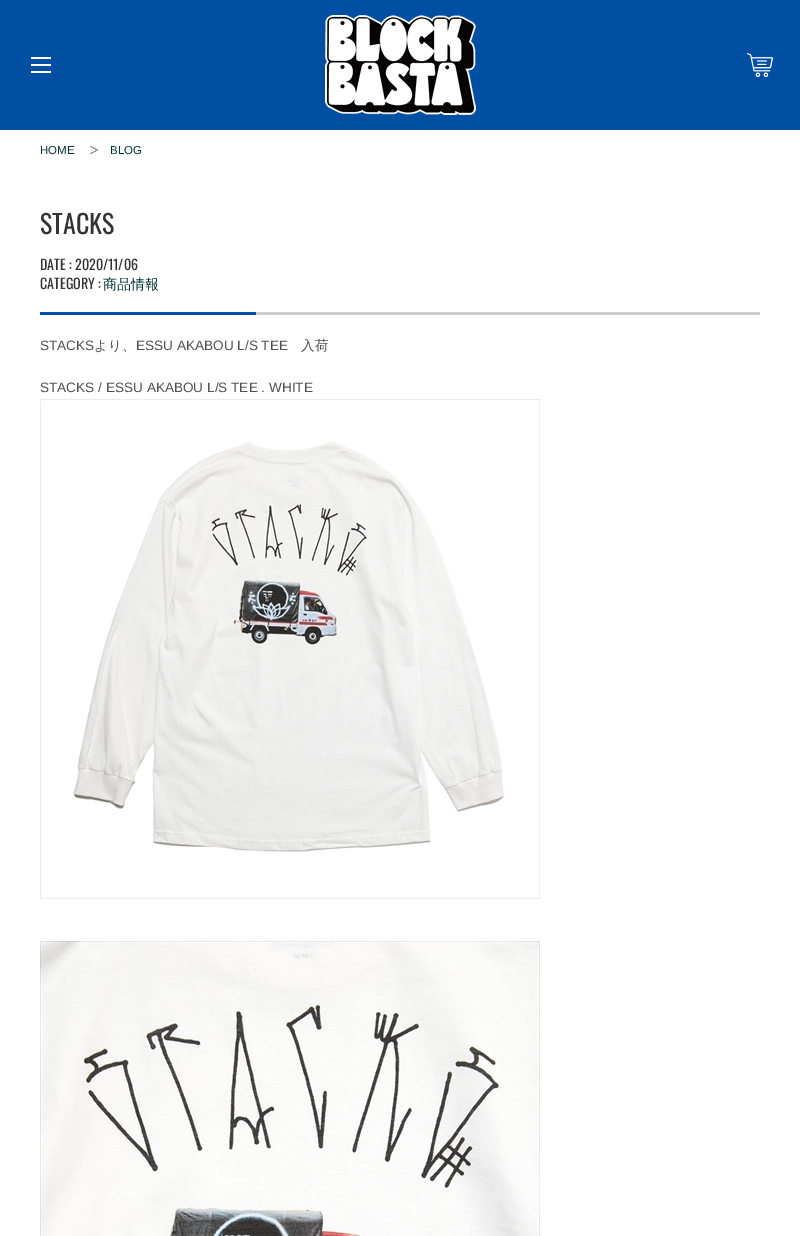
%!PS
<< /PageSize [800 1236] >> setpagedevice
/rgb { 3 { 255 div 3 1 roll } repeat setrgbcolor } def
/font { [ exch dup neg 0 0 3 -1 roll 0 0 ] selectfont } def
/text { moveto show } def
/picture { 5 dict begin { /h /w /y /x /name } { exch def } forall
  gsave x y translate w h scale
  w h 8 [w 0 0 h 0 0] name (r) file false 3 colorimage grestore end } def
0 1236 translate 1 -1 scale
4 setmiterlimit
255 255 255 rgb
0 0 800 1236 rectfill
0 79 163 rgb
0 0 800 130 rectfill
255 255 255 rgb
31 64 20 2 rectfill
31 57 20 2 rectfill
31 71 20 2 rectfill
(img_01.rgb) 325 15 151 100 picture
(img_02.rgb) 747 53 26 24 picture
(img_03.rgb) 90 146 8 8 picture
204 204 204 rgb
256 312 504 3 rectfill
0 79 163 rgb
40 312 216 3 rectfill
(img_04.rgb) 40 399 500 500 picture
(img_05.rgb) 40 941 500 295 picture
/LiberationSans-Regular 11.5 font
0 51 51 rgb
(HOME) 40 154 text
(BLOG) 110 154 text
/Oswald-Regular 26 font
51 51 51 rgb
(STACKS) 40 234 text
/Oswald-Regular 14 font
(DATE : 2020/11/06) 40 270 text
(CATEGORY :) 40 289 text
/WenQuanYiZenHei-Medium 14 font
0 51 51 rgb
(商品情報) 103 289 text
/LiberationSans-Regular 13.6 font
82 82 82 rgb
(STACKS) 40 350 text
/WenQuanYiZenHei-Medium 13.6 font
(より、) 94 350 text
/LiberationSans-Regular 13.6 font
(ESSU AKABOU L/S TEE) 136 350 text
/WenQuanYiZenHei-Medium 13.6 font
(入荷) 301 350 text
/LiberationSans-Regular 13.6 font
(STACKS / ESSU AKABOU L/S TEE . WHITE) 40 392 text
showpage
